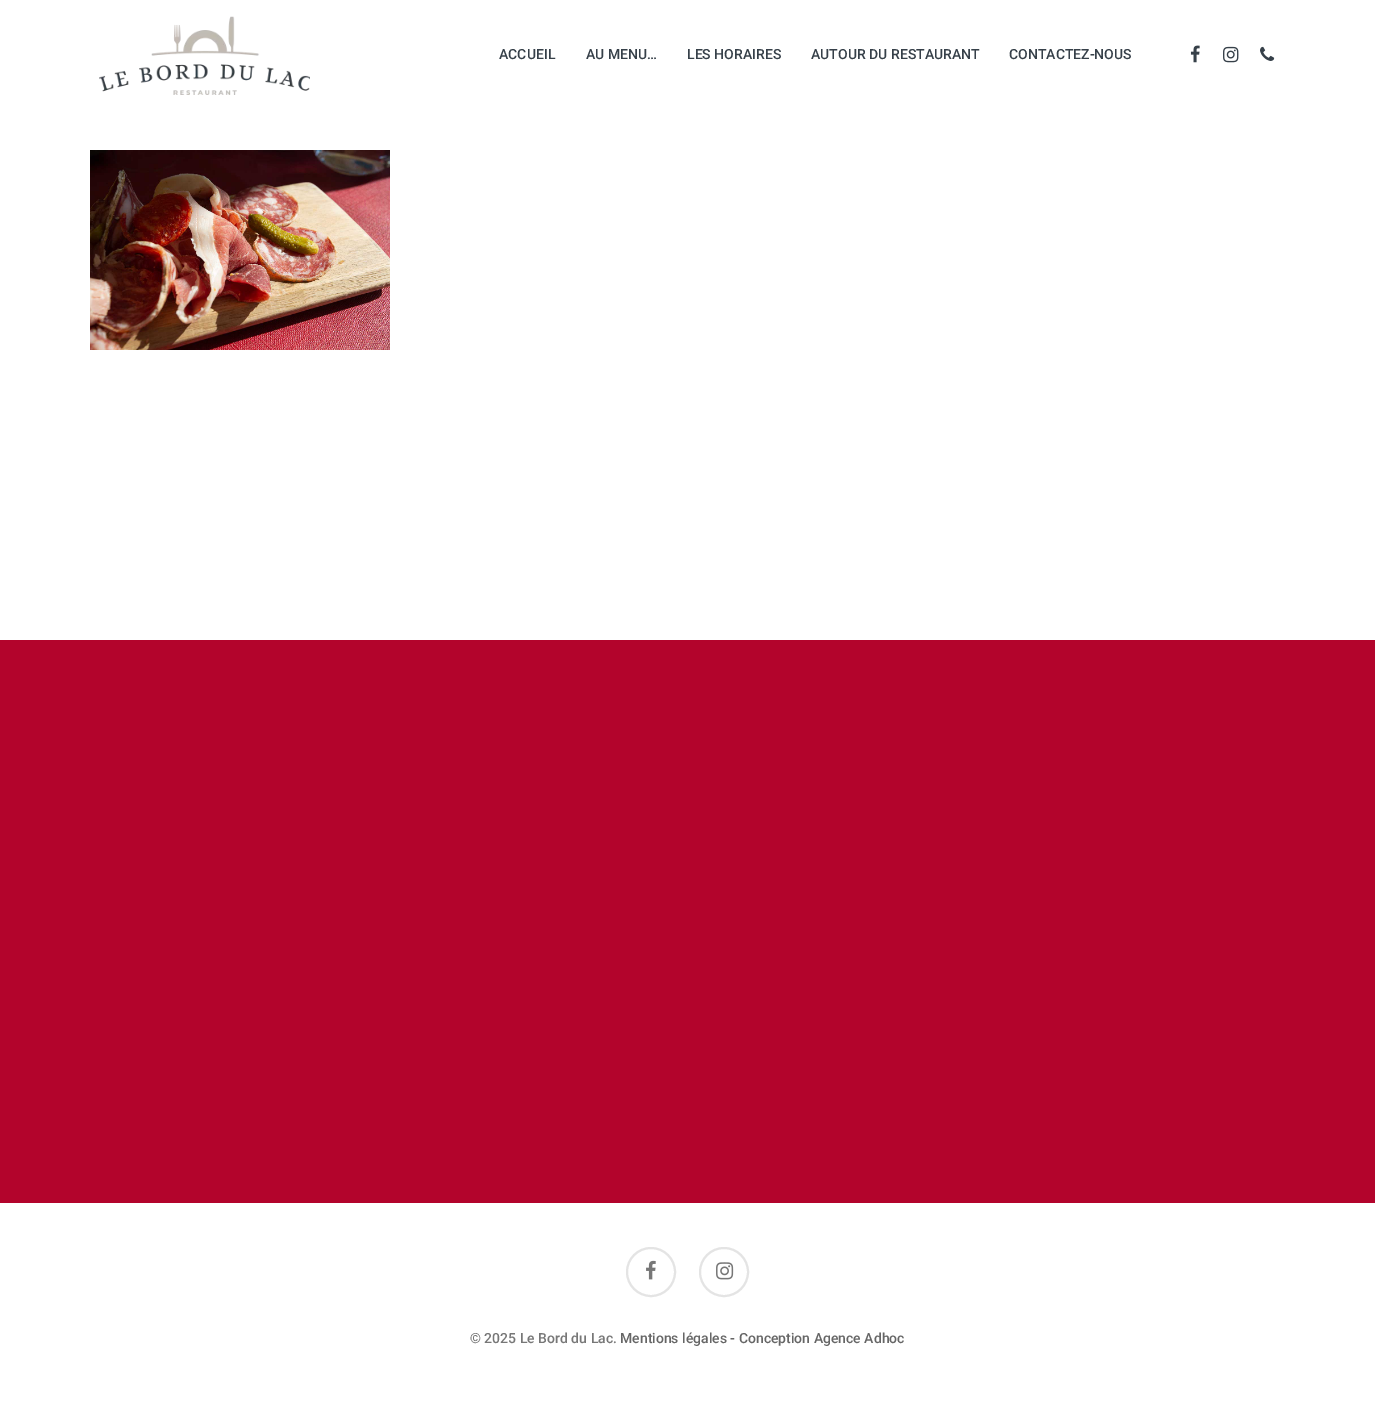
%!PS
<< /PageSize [1375 1419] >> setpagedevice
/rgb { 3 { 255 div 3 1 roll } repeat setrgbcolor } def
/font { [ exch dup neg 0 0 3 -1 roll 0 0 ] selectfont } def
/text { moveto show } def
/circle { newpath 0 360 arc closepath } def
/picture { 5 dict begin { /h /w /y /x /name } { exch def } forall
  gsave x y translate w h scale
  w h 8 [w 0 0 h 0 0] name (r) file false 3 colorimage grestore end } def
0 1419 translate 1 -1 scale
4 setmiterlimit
179 4 44 rgb
0 0 1375 1419 rectfill
255 255 255 rgb
0 0 1375 640 rectfill
(img_01.rgb) 99 16 211 79 picture
(img_02.rgb) 1190 45 10 18 picture
(img_03.rgb) 1223 46 16 17 picture
(img_04.rgb) 1260 46 15 15 picture
(img_05.rgb) 90 150 300 200 picture
0 1203 1375 216 rectfill
(img_06.rgb) 646 1260 10 20 picture
228 228 228 rgb
2 setlinewidth
651 1272 24 circle stroke
(img_07.rgb) 716 1262 18 18 picture
724 1272 24 circle stroke
/Roboto-Medium 14 font
54 64 73 rgb
(ACCUEIL) 499 59 text
(AU MENU…) 586 59 text
(LES HORAIRES) 687 59 text
(AUTOUR DU RESTAURANT) 811 59 text
(CONTACTEZ-NOUS) 1009 59 text
119 119 119 rgb
(© 2025 Le Bord du Lac.) 470 1343 text
102 102 102 rgb
(Mentions légales - Conception Agence Adhoc) 620 1343 text
showpage
